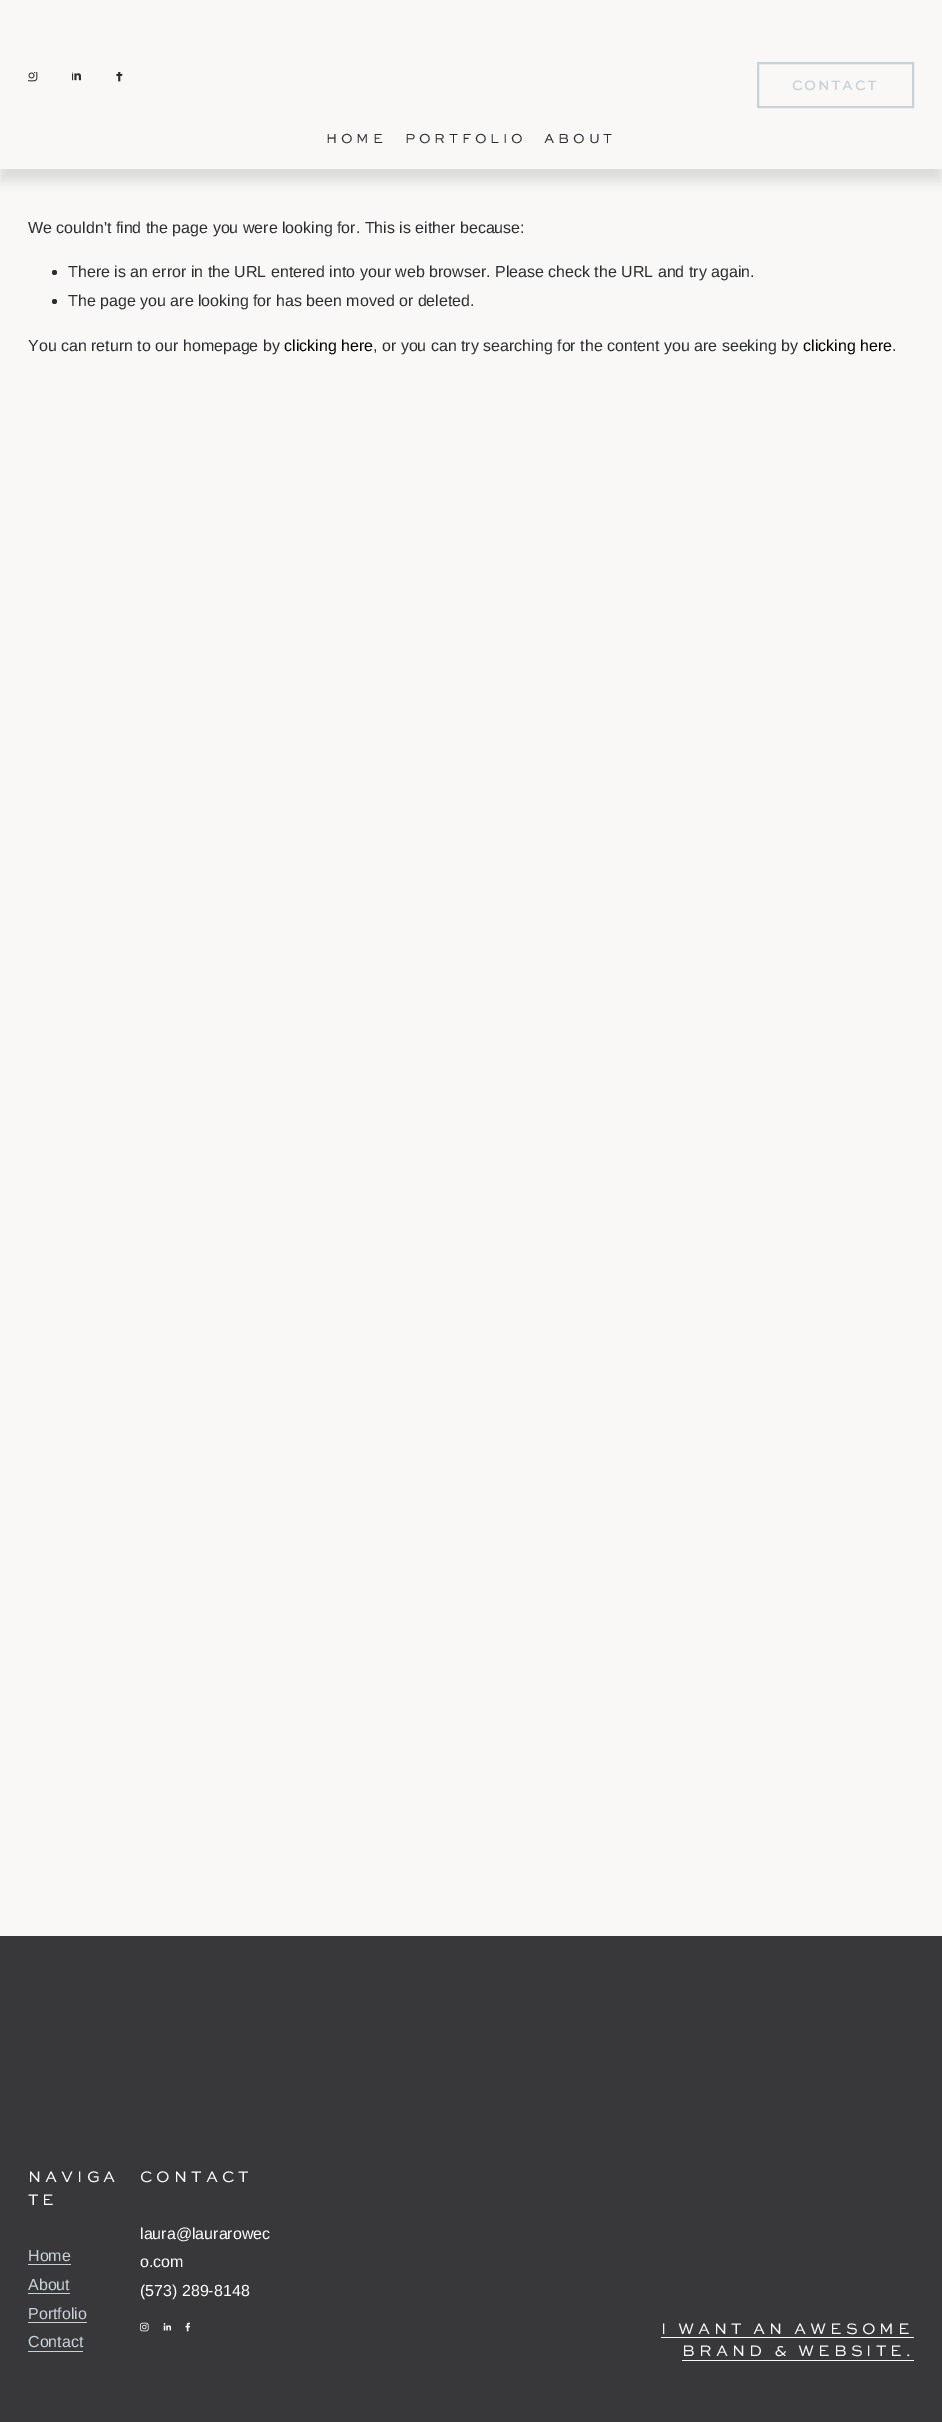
%!PS
<< /PageSize [942 2422] /PageUsesTransparency true >> setpagedevice
/rgb { 3 { 255 div 3 1 roll } repeat setrgbcolor } def
/font { [ exch dup neg 0 0 3 -1 roll 0 0 ] selectfont } def
/text { moveto show } def
/alpha { dup .setfillconstantalpha .setstrokeconstantalpha } def
/circle { newpath 0 360 arc closepath } def
/roundrect { 5 dict begin { /r /h /w /y /x } { exch def } forall
  x r add y moveto x w add y 2 copy h add r arct x w add y h add x 1 index r arct
  x y h add x y r arct x y 2 copy exch w add exch r arct closepath end } def
/shadow { 12 dict begin { /a /b /q /h /w /y /x } { exch def } forall gsave /was 0 def
  9 -2 -9 { dup b mul 4 div /e exch def 1 sub .425 mul 2.718 exch exp 1 add a .99 .min exch div /now exch def
    1 1 now sub 1 was sub div sub alpha /was now def
    w h .min e 2 mul add 0 gt { x e sub y e sub w e 2 mul add h e 2 mul add
      q e add b .6 mul add w h .min 2 div e add .min 0 .max roundrect fill } if } for grestore end } def
/picture { 5 dict begin { /h /w /y /x /name } { exch def } forall
  gsave x y translate w h scale
  w h 8 [w 0 0 h 0 0] name (r) file false 3 colorimage grestore end } def
0 .pushpdf14devicefilter
0 2422 translate 1 -1 scale
4 setmiterlimit
249 248 246 rgb
0 0 942 2422 rectfill
gsave
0 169 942 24 rectclip
218 218 216 rgb
0 12 942 169 0 6 1 shadow
grestore
(img_01.rgb) 28 72 10 10 picture
(img_02.rgb) 72 72 9 9 picture
(img_03.rgb) 116 72 7 10 picture
199 210 217 rgb
2 setlinewidth
758 63 155 44 rectstroke
43 45 49 rgb
54.5 272.5 2.5 circle fill
54.5 301.5 2.5 circle fill
56 56 59 rgb
0 1936 942 486 rectfill
199 210 217 rgb
28 2264 43 1 rectfill
28 2293 42 1 rectfill
28 2322 59 1 rectfill
28 2351 55 1 rectfill
(img_04.rgb) 140 2322 9 10 picture
(img_05.rgb) 163 2323 8 8 picture
(img_06.rgb) 185 2322 5 10 picture
249 248 246 rgb
661 2337 253 1 rectfill
682 2360 232 1 rectfill
/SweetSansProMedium-Medium 14.25 font
199 210 217 rgb
792 90 moveto 1.5 0 (CONTACT) ashow
/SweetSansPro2-Regular 13.75 font
43 45 49 rgb
326 143 moveto 3.75 0 (HOME) ashow
405 143 moveto 3.75 0 (PORTFOLIO) ashow
544 143 moveto 3.75 0 (ABOUT) ashow
/LiberationSans-Regular 16 font
(We couldn't find the page you were looking for. This is either because:) 28 233 text
(There is an error in the URL entered into your web browser. Please check the URL and try again.) 68 277 text
(The page you are looking for has been moved or deleted.) 68 306 text
(You can return to our homepage by) 28 351 text
0 0 0 rgb
(clicking here) 284 351 text
43 45 49 rgb
(, or you can try searching for the content you are seeking by) 373 351 text
0 0 0 rgb
(clicking here) 803 351 text
43 45 49 rgb
(.) 892 351 text
/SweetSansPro-Regular 16 font
255 255 255 rgb
28 2182 moveto 4 0 (NAVIGA) ashow
28 2205 moveto 4 0 (TE) ashow
/LiberationSans-Regular 16 font
199 210 217 rgb
(Home) 28 2261 text
(About) 28 2290 text
(Portfolio) 28 2319 text
(Contact) 28 2347 text
/SweetSansPro-Regular 16 font
255 255 255 rgb
140 2182 moveto 4 0 (CONTACT) ashow
/LiberationSans-Regular 16 font
(laura@laurarowec) 140 2239 text
(o.com) 140 2267 text
(\(573\) 289-8148) 140 2296 text
/SweetSansPro-Regular 16 font
249 248 246 rgb
661 2334 moveto 4 0 (I WANT AN AWESOME) ashow
682 2356 moveto 4 0 (BRAND & WEBSITE.) ashow
.poppdf14devicefilter showpage
